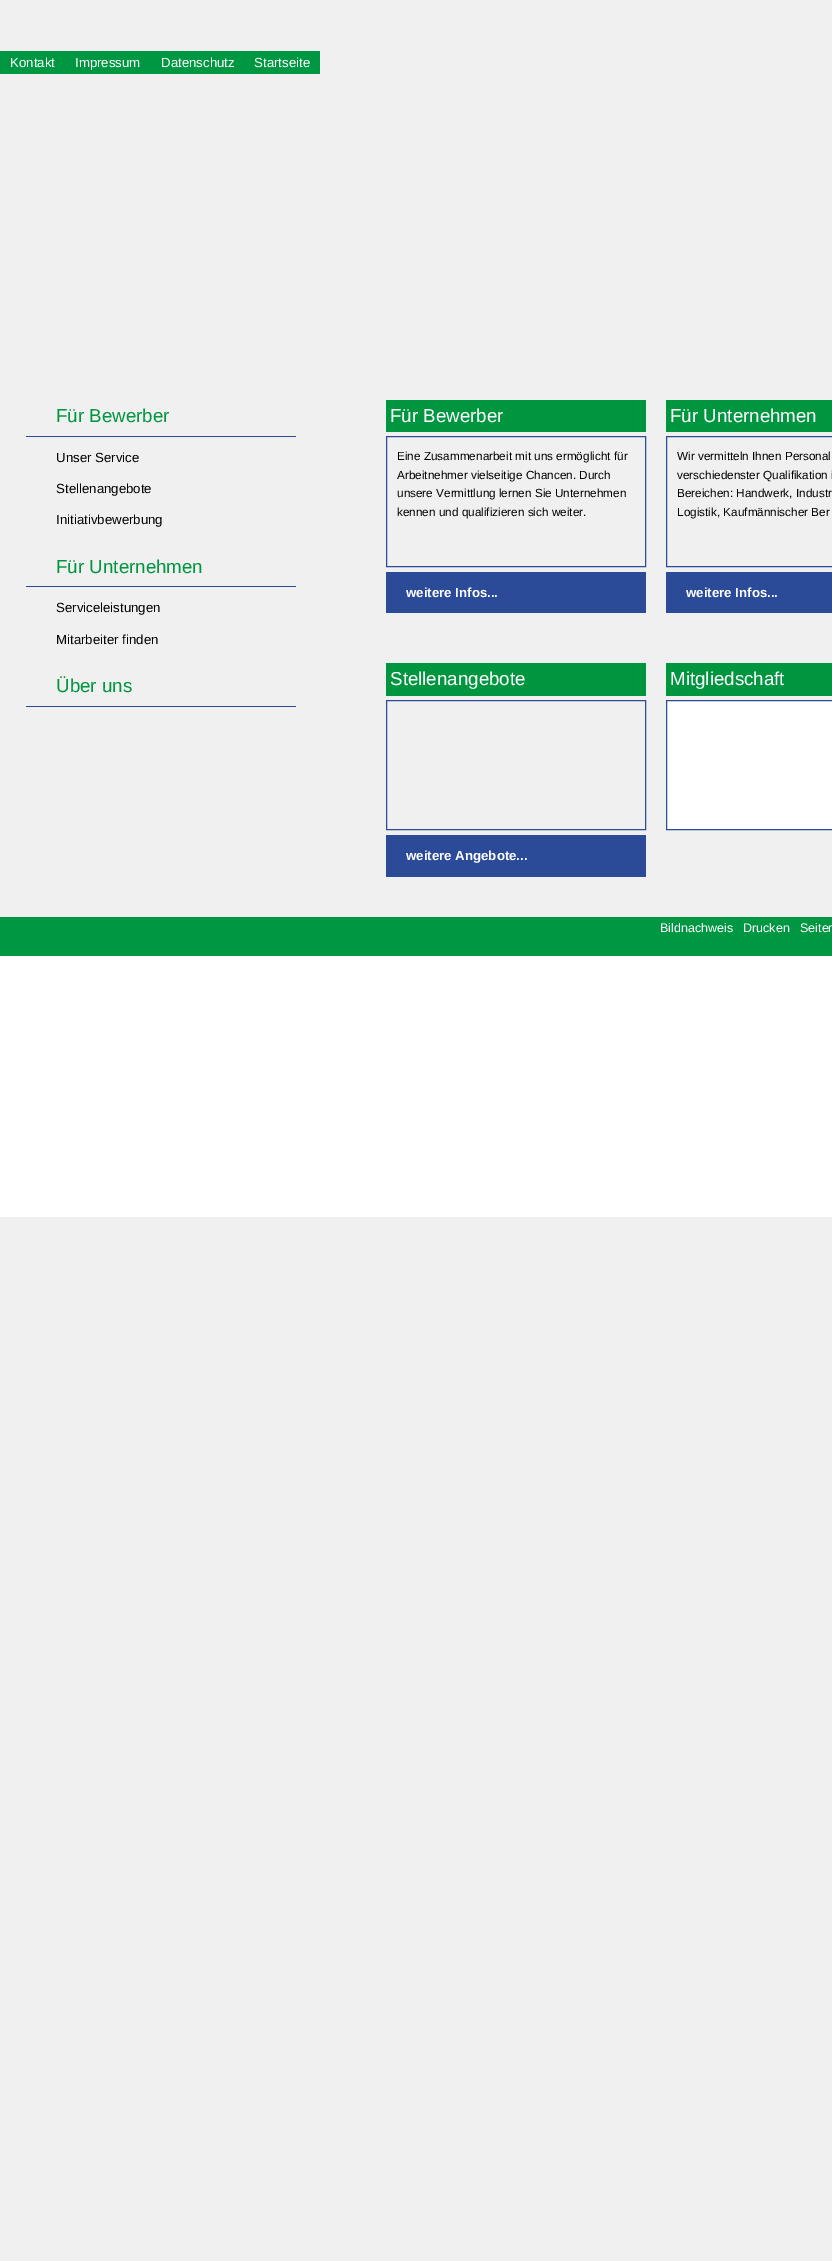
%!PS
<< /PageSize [832 2261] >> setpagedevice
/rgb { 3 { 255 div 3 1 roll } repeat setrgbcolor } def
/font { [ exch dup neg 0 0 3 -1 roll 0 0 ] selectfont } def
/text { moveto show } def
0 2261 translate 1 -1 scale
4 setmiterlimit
240 240 240 rgb
0 0 832 2261 rectfill
0 151 66 rgb
0 51 320 23 rectfill
43 75 152 rgb
26 436 270 1 rectfill
26 586 270 1 rectfill
26 706 270 1 rectfill
0 150 64 rgb
386 400 260 32 rectfill
43 75 152 rgb
386.5 436.5 259 130 rectstroke
386 572 260 41 rectfill
0 150 64 rgb
666 400 166 32 rectfill
43 75 152 rgb
666.5 436.5 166 130 rectstroke
666 572 166 41 rectfill
0 150 64 rgb
386 663 260 33 rectfill
43 75 152 rgb
386.5 700.5 259 129 rectstroke
386 835 260 42 rectfill
0 150 64 rgb
666 663 166 33 rectfill
255 255 255 rgb
666.5 700.5 moveto 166 0 rlineto 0 129 rlineto -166 0 rlineto closepath gsave fill grestore
43 75 152 rgb
stroke
255 255 255 rgb
0 956 832 261 rectfill
0 151 66 rgb
0 917 832 39 rectfill
/LiberationSans-Regular 13.25 font
255 255 255 rgb
(Kontakt) 10 67 text
(Impressum) 75 67 text
(Datenschutz) 161 67 text
(Startseite) 254 67 text
/LiberationSans-Regular 18.75 font
0 150 64 rgb
(Für Bewerber) 56 422 text
/LiberationSans-Regular 13.25 font
0 0 0 rgb
(Unser Service) 56 462 text
(Stellenangebote) 56 493 text
(Initiativbewerbung) 56 524 text
/LiberationSans-Regular 18.75 font
0 150 64 rgb
(Für Unternehmen) 56 573 text
/LiberationSans-Regular 13.25 font
0 0 0 rgb
(Serviceleistungen) 56 612 text
(Mitarbeiter finden) 56 644 text
/LiberationSans-Regular 18.75 font
0 150 64 rgb
(Über uns) 56 692 text
255 255 255 rgb
(Für Bewerber) 390 422 text
/LiberationSans-Regular 11.75 font
0 0 0 rgb
(Eine Zusammenarbeit mit uns ermöglicht für) 397 460 text
(Arbeitnehmer vielseitige Chancen. Durch) 397 479 text
(unsere Vermittlung lernen Sie Unternehmen) 397 497 text
(kennen und qualifizieren sich weiter.) 397 516 text
/LiberationSans-Bold 13.25 font
255 255 255 rgb
(weitere Infos...) 406 597 text
/LiberationSans-Regular 18.75 font
(Für Unternehmen) 670 422 text
/LiberationSans-Regular 11.75 font
0 0 0 rgb
(Wir vermitteln Ihnen Personal) 677 460 text
(verschiedenster Qualifikation i) 677 479 text
(Bereichen: Handwerk, Industr) 677 497 text
(Logistik, Kaufmännischer Ber) 677 516 text
/LiberationSans-Bold 13.25 font
255 255 255 rgb
(weitere Infos...) 686 597 text
/LiberationSans-Regular 18.75 font
(Stellenangebote) 390 685 text
/LiberationSans-Bold 13.25 font
(weitere Angebote...) 406 860 text
/LiberationSans-Regular 18.75 font
(Mitgliedschaft) 670 685 text
/LiberationSans-Regular 12.5 font
(Bildnachweis) 660 932 text
(Drucken) 743 932 text
(Seiten) 800 932 text
showpage
